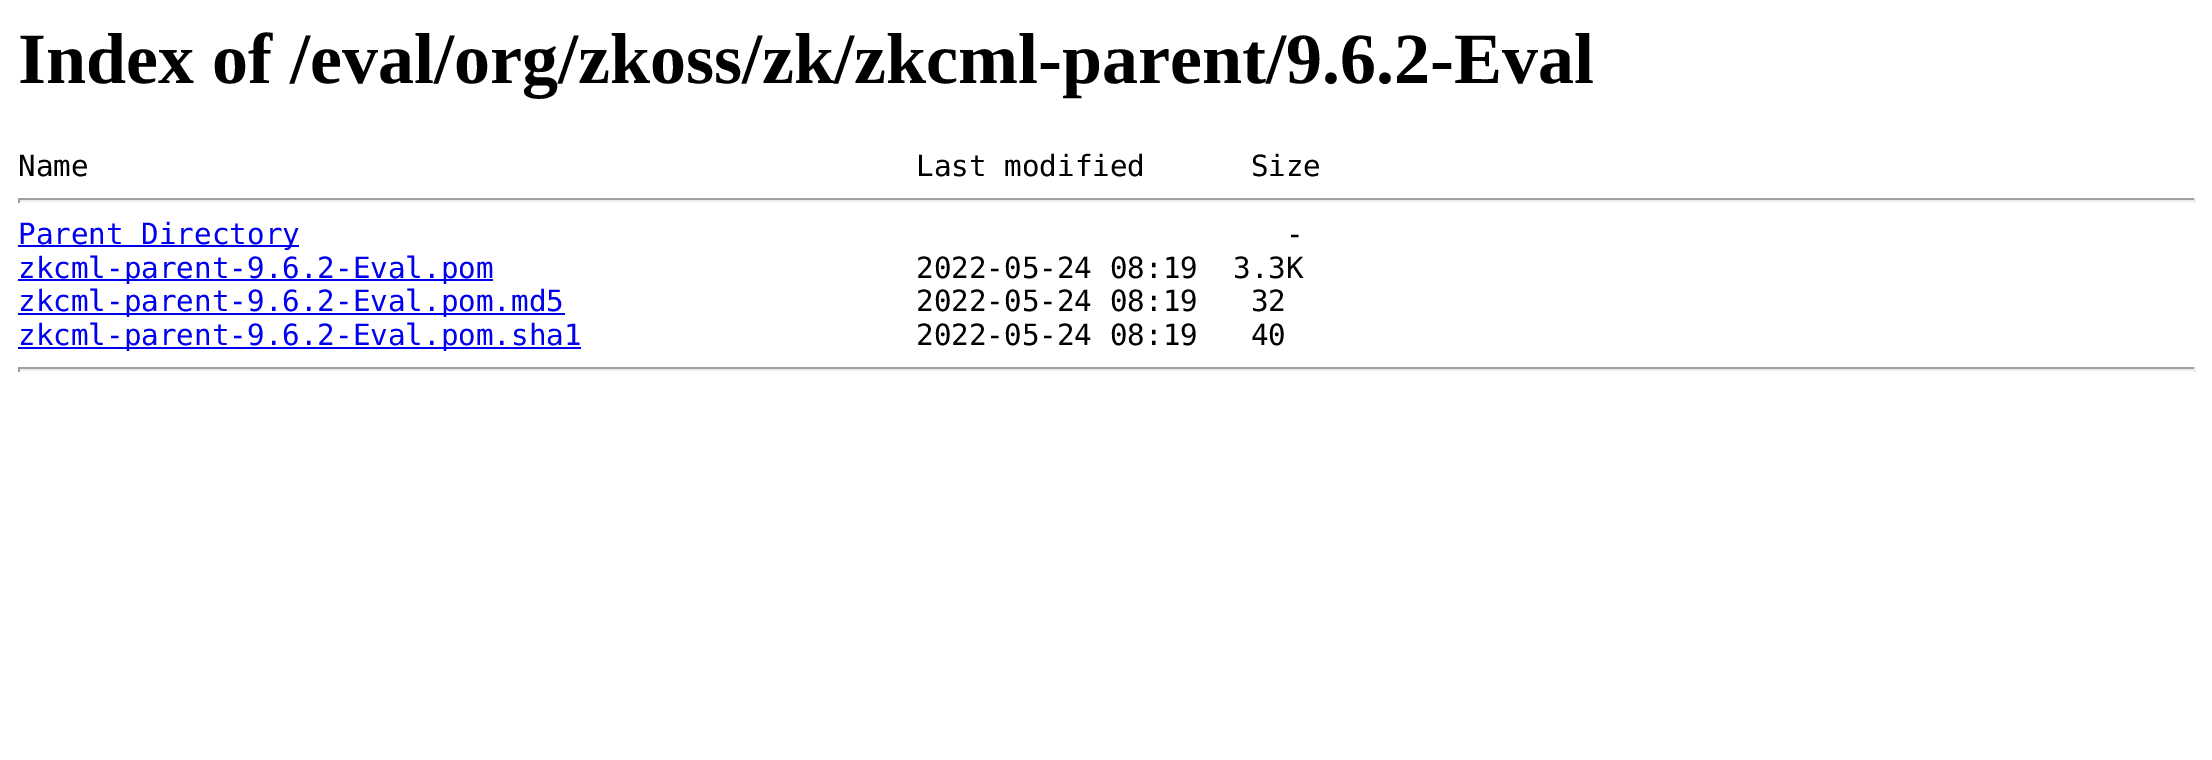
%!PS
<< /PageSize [2212 760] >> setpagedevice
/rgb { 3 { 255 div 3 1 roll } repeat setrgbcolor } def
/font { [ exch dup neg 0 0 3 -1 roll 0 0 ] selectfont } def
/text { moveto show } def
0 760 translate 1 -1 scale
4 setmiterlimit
255 255 255 rgb
0 0 2212 760 rectfill
159 159 159 rgb
18 198 2178 2 rectfill
238 238 238 rgb
2194 198 2 5 rectfill
18 200 2178 2 rectfill
159 159 159 rgb
18 198 2 5 rectfill
0 0 238 rgb
18 245 281 2 rectfill
18 279 475 2 rectfill
18 313 547 2 rectfill
18 347 563 2 rectfill
159 159 159 rgb
18 367 2178 2 rectfill
238 238 238 rgb
2194 367 2 5 rectfill
18 369 2178 2 rectfill
159 159 159 rgb
18 367 2 5 rectfill
/LiberationSerif-Bold 72 font
0 0 0 rgb
(Index of /eval/org/zkoss/zk/zkcml-parent/9.6.2-Eval) 18 83 text
/DejaVuSansMono-Regular 29.25 font
(Name                                               Last modified      Size) 18 176 text
0 0 238 rgb
(Parent Directory) 18 244 text
0 0 0 rgb
(-) 1286 244 text
0 0 238 rgb
(zkcml-parent-9.6.2-Eval.pom) 18 278 text
0 0 0 rgb
(2022-05-24 08:19  3.3K) 916 278 text
0 0 238 rgb
(zkcml-parent-9.6.2-Eval.pom.md5) 18 311 text
0 0 0 rgb
(2022-05-24 08:19   32) 916 311 text
0 0 238 rgb
(zkcml-parent-9.6.2-Eval.pom.sha1) 18 345 text
0 0 0 rgb
(2022-05-24 08:19   40) 916 345 text
showpage
